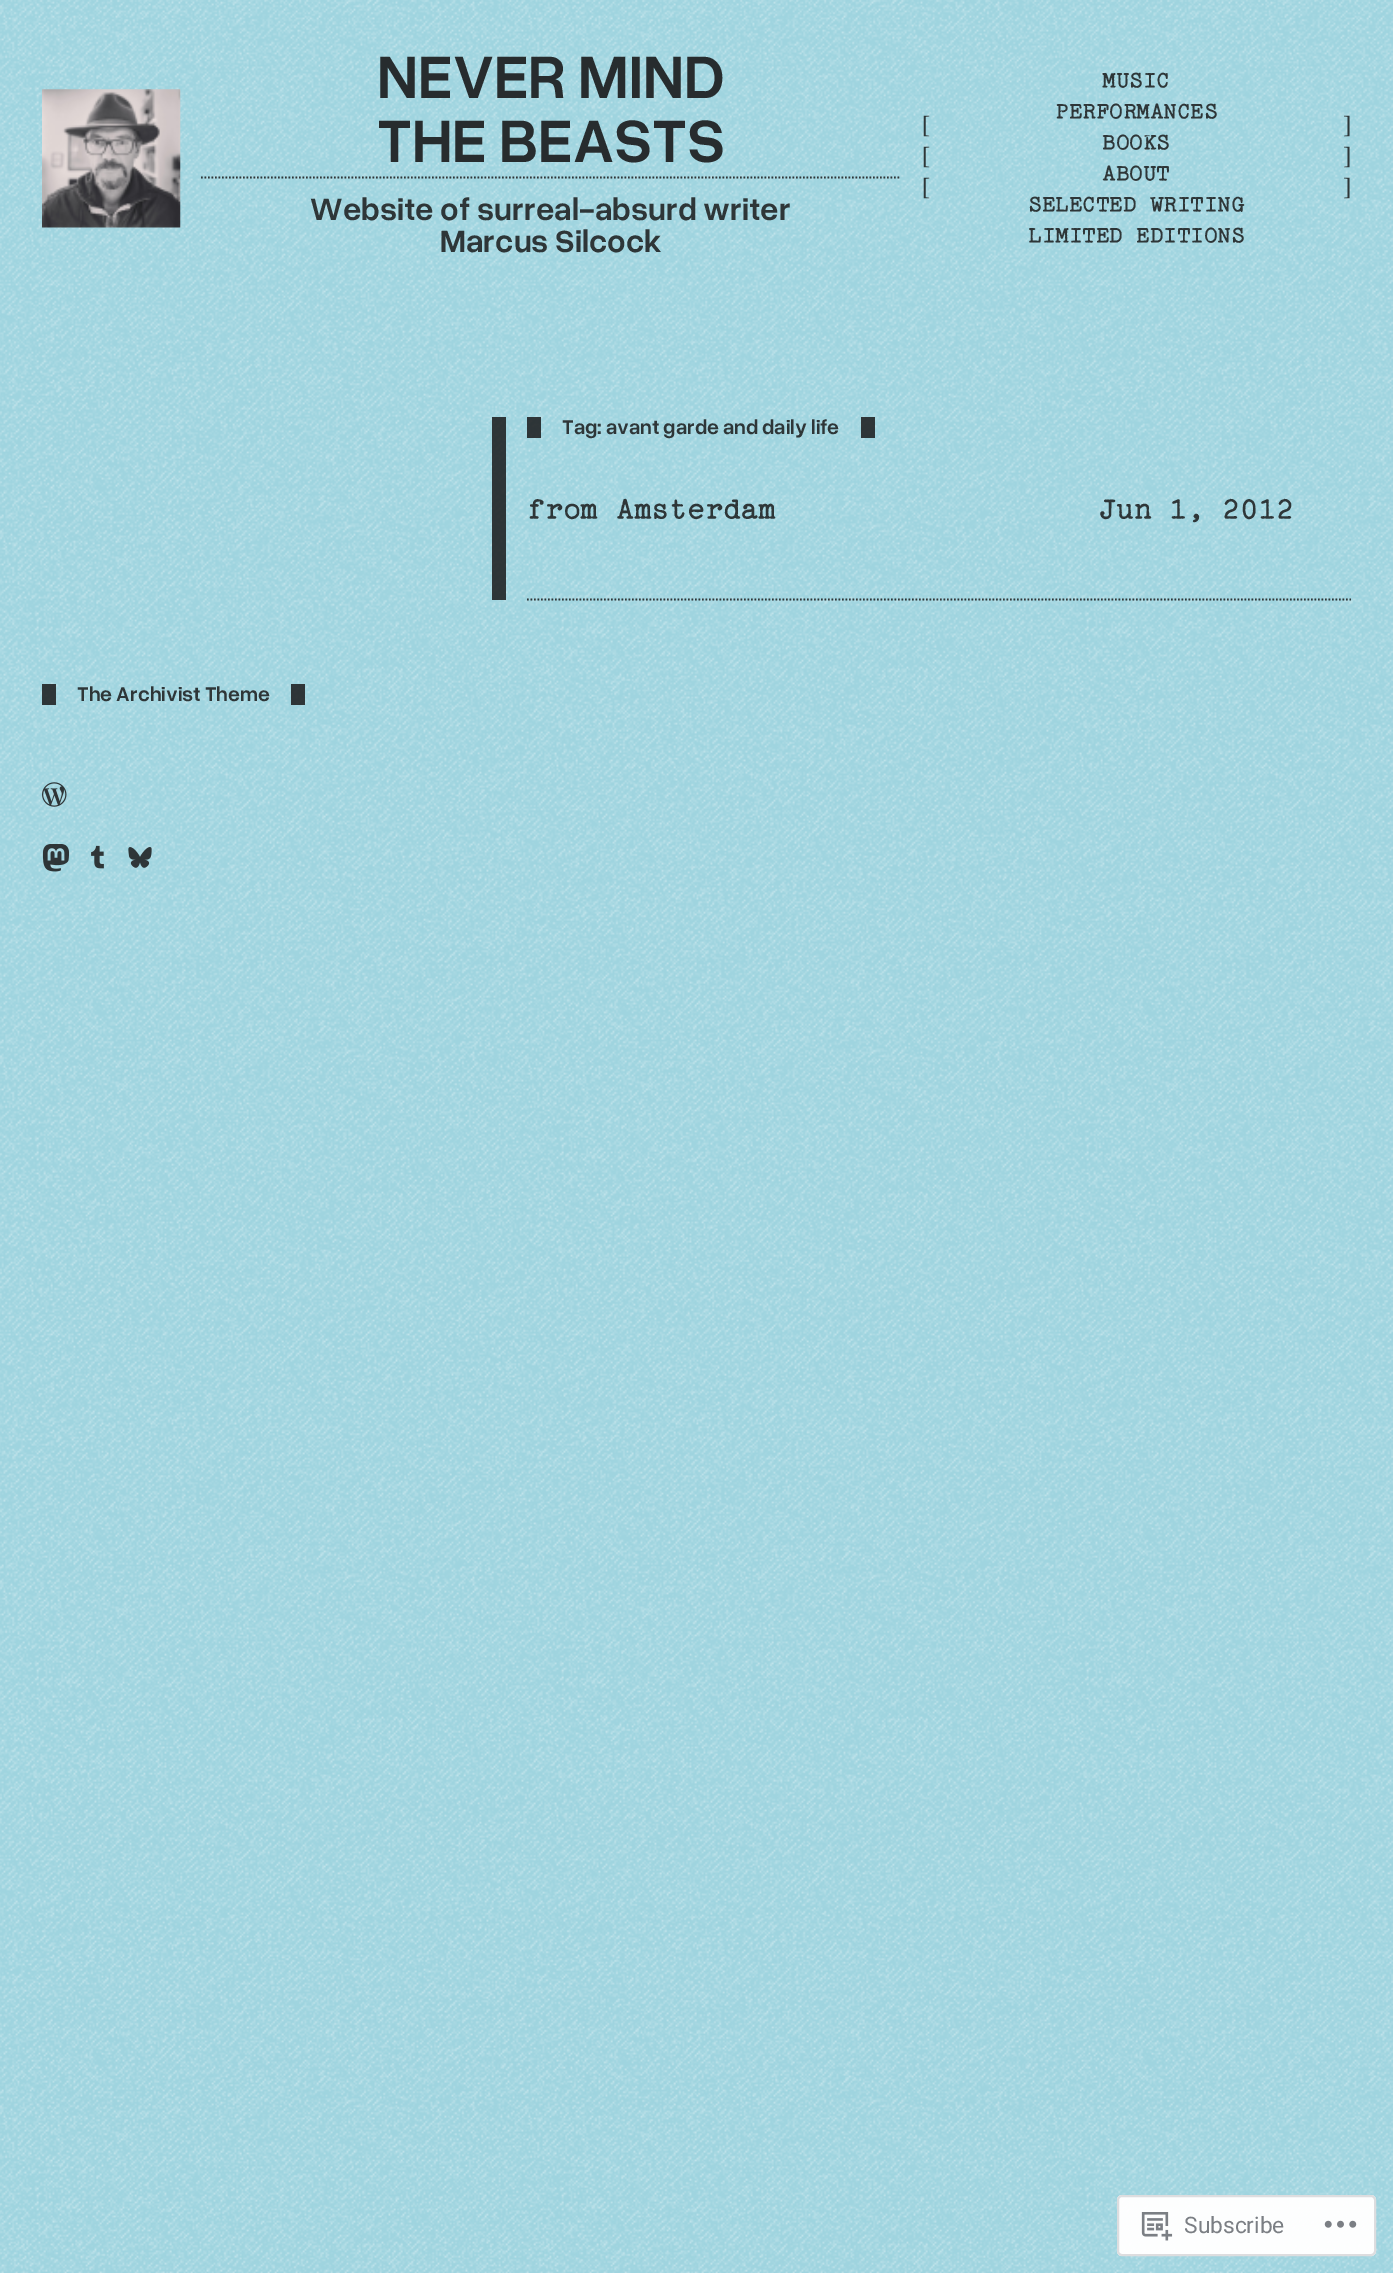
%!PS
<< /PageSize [1393 2273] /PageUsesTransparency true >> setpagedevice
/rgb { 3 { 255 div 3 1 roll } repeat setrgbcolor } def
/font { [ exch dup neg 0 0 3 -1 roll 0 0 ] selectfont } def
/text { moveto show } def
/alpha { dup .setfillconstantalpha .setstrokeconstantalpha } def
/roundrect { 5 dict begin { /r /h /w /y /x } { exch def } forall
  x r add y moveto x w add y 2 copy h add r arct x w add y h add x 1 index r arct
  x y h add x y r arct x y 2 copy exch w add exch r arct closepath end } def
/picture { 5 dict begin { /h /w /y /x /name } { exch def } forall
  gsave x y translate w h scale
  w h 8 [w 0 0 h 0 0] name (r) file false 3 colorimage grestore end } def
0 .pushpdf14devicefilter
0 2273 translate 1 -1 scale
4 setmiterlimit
159 212 223 rgb
0 0 1393 2273 rectfill
(img_01.rgb) 0 0 1393 2273 picture
(img_02.rgb) 42 89 139 139 picture
0.85 alpha
25 25 26 rgb
1.8 setlinewidth
[1.75 1.75] 0 setdash
201 177.5 moveto 700 0 rlineto stroke
492 417 14 183 rectfill
861 417 14 21 rectfill
527 417 14 21 rectfill
527 599.5 moveto 824 0 rlineto stroke
291 684 14 21 rectfill
42 684 14 21 rectfill
1 alpha
(img_03.rgb) 42 782 25 25 picture
(img_04.rgb) 42 844 28 28 picture
(img_05.rgb) 91 845 13 24 picture
(img_06.rgb) 128 847 24 21 picture
0.98 alpha
255 255 255 rgb
1117 2195 259 61 5 roundrect fill
220 220 222 rgb
2 setlinewidth
[] 0 setdash
1118 2196 257 59 4 roundrect stroke
1 alpha
(img_07.rgb) 1141 2212 32 29 picture
(img_08.rgb) 1324 2220 33 8 picture
/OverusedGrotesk-SemiBold 63.5 font
39 44 46 rgb
(NEVER MIND) 377 98 text
(THE BEASTS) 377 162 text
/OverusedGrotesk-SemiBold 32.5 font
46 54 56 rgb
(Website of surreal-absurd writer) 310 220 text
(Marcus Silcock) 440 252 text
/LiberationSerif-Regular 24.75 font
([) 922 133 text
([) 922 164 text
([) 922 195 text
/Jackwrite-Regular 24.75 font
(MUSIC) 1102 87 text
(PERFORMANCES) 1055 118 text
(BOOKS) 1102 149 text
(ABOUT) 1102 180 text
(SELECTED WRITING) 1028 211 text
(LIMITED EDITIONS) 1028 242 text
/LiberationSerif-Regular 24.75 font
(]) 1343 133 text
(]) 1343 164 text
(]) 1343 195 text
/OverusedGrotesk-SemiBold 21 font
(Tag: avant garde and daily life) 562 434 text
/Jackwrite-Regular 32.5 font
(from Amsterdam) 527 518 text
(Jun 1, 2012) 1098 518 text
/OverusedGrotesk-SemiBold 21 font
(The Archivist Theme) 77 701 text
/Roboto-Regular 22.75 font
123 127 132 rgb
(Subscribe) 1184 2233 text
.poppdf14devicefilter showpage
